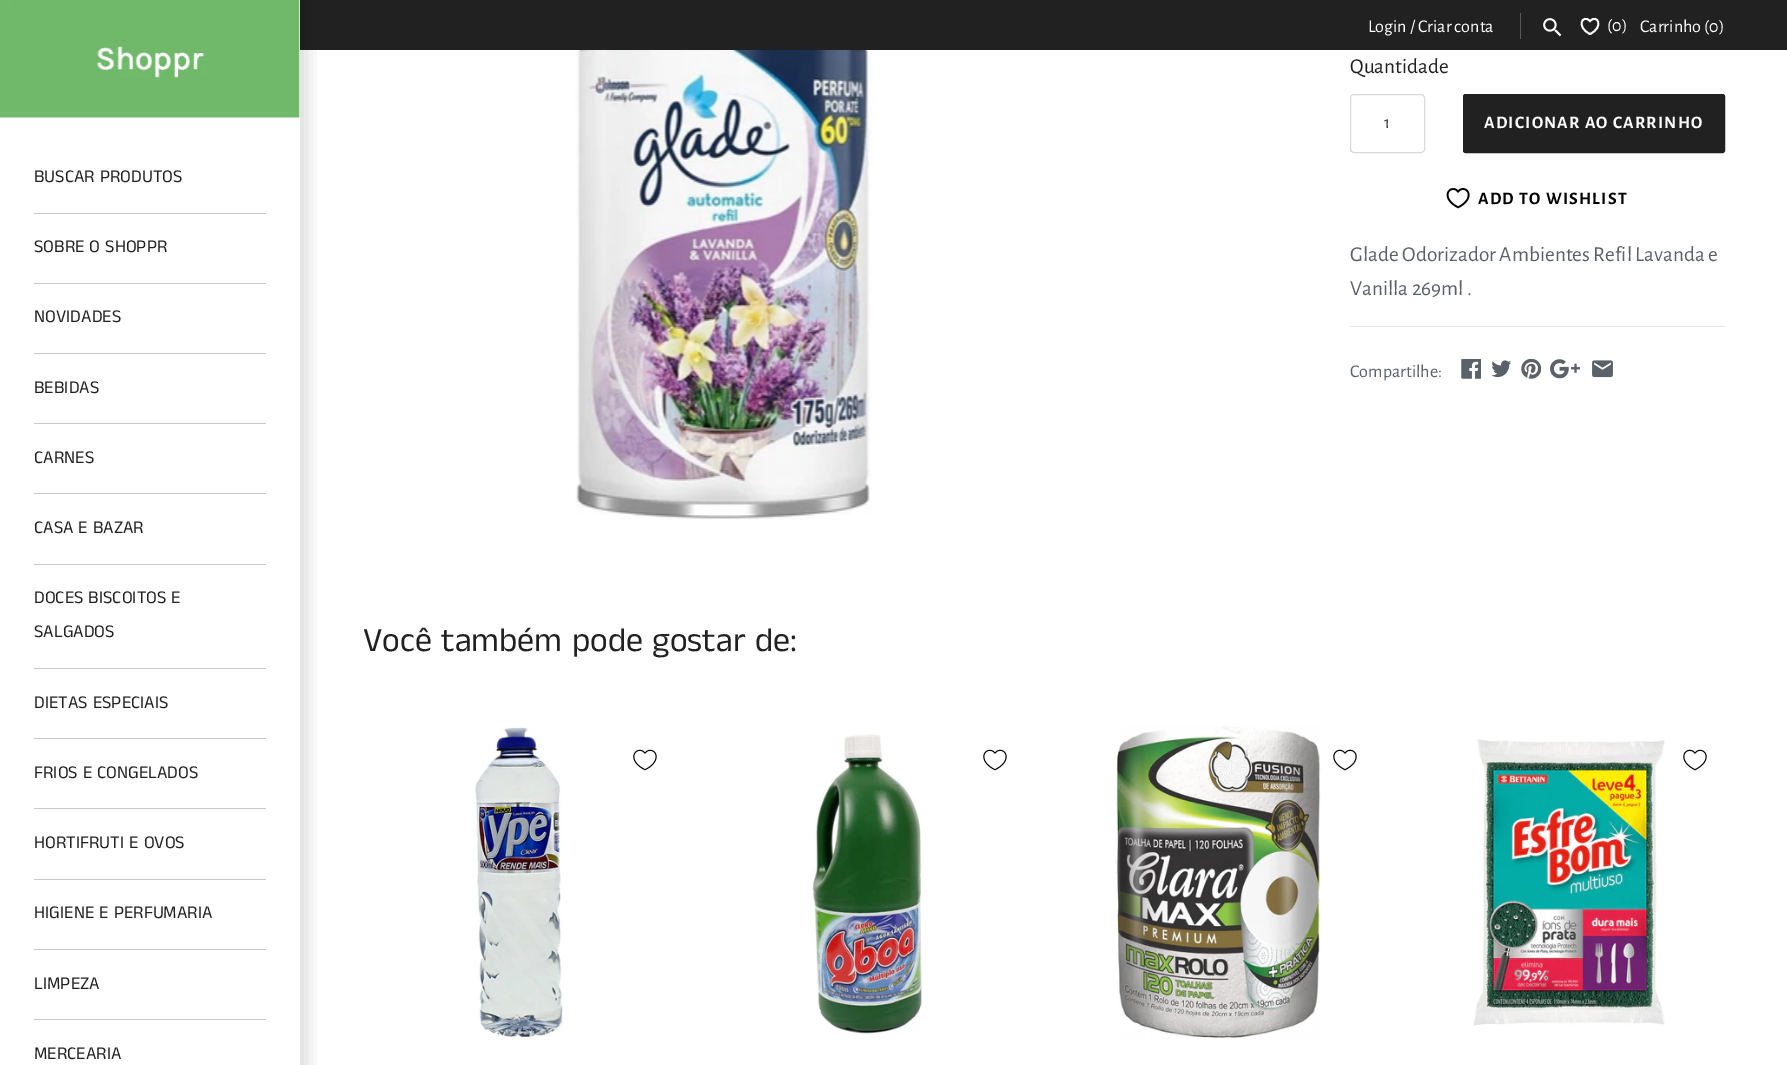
%!PS
<< /PageSize [1787 1065] /PageUsesTransparency true >> setpagedevice
/rgb { 3 { 255 div 3 1 roll } repeat setrgbcolor } def
/font { [ exch dup neg 0 0 3 -1 roll 0 0 ] selectfont } def
/text { moveto show } def
/alpha { dup .setfillconstantalpha .setstrokeconstantalpha } def
/roundrect { 5 dict begin { /r /h /w /y /x } { exch def } forall
  x r add y moveto x w add y 2 copy h add r arct x w add y h add x 1 index r arct
  x y h add x y r arct x y 2 copy exch w add exch r arct closepath end } def
/shadow { 12 dict begin { /a /b /q /h /w /y /x } { exch def } forall gsave /was 0 def
  9 -2 -9 { dup b mul 4 div /e exch def 1 sub .425 mul 2.718 exch exp 1 add a .99 .min exch div /now exch def
    1 1 now sub 1 was sub div sub alpha /was now def
    w h .min e 2 mul add 0 gt { x e sub y e sub w e 2 mul add h e 2 mul add
      q e add b .6 mul add w h .min 2 div e add .min 0 .max roundrect fill } if } for grestore end } def
/picture { 5 dict begin { /h /w /y /x /name } { exch def } forall
  gsave x y translate w h scale
  w h 8 [w 0 0 h 0 0] name (r) file false 3 colorimage grestore end } def
0 .pushpdf14devicefilter
0 1065 translate 1 -1 scale
4 setmiterlimit
255 255 255 rgb
0 0 1787 1065 rectfill
33 33 33 rgb
300 0 1487 50 rectfill
89 89 89 rgb
1520 13 1 26 rectfill
(img_01.rgb) 1543 18 19 19 picture
255 255 255 rgb
1.8 setlinewidth
1590 34 moveto -14.5 -7 -7.5 -20.5 0 -13 rcurveto 7.5 -7.5 14.5 6 0 13 rcurveto closepath stroke
gsave
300 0 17 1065 rectclip
0 0 0 rgb
-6 -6 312 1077 0 9.5 0.15 shadow
grestore
(img_02.rgb) 0 0 300 118 picture
200 200 200 rgb
34 213 232 1 rectfill
34 283 232 1 rectfill
34 353 232 1 rectfill
34 423 232 1 rectfill
34 493 232 1 rectfill
34 564 232 1 rectfill
34 668 232 1 rectfill
34 738 232 1 rectfill
34 808 232 1 rectfill
34 879 232 1 rectfill
34 949 232 1 rectfill
34 1019 232 1 rectfill
(img_03.rgb) 575 50 297 470 picture
217 217 217 rgb
1 setlinewidth
1350.5 94.5 74 58 3.5 roundrect stroke
33 33 33 rgb
1463.5 94.5 261 58 2 roundrect gsave fill grestore
stroke
(img_04.rgb) 1446 188 24 21 picture
231 231 231 rgb
1350 326 375 1 rectfill
(img_05.rgb) 1461 359 20 20 picture
(img_06.rgb) 1491 360 20 18 picture
(img_07.rgb) 1521 359 20 20 picture
(img_08.rgb) 1550 359 30 20 picture
(img_09.rgb) 1592 360 21 18 picture
(img_10.rgb) 474 726 90 313 picture
(img_11.rgb) 633 749 24 22 picture
(img_12.rgb) 810 733 112 302 picture
(img_11.rgb) 983 749 24 22 picture
(img_13.rgb) 1115 726 206 313 picture
(img_11.rgb) 1333 749 24 22 picture
(img_14.rgb) 1473 739 192 287 picture
(img_11.rgb) 1683 749 24 22 picture
/AlegreyaSans-Regular 18 font
255 255 255 rgb
(Login / Criar conta) 1368 32 text
(\(0\)) 1607 31 text
(Carrinho \(0\)) 1640 32 text
/AnekTamil-Regular 18 font
33 33 33 rgb
(BUSCAR PRODUTOS) 34 182 text
(SOBRE O SHOPPR) 34 252 text
(NOVIDADES) 34 322 text
(BEBIDAS) 34 393 text
(CARNES) 34 463 text
(CASA E BAZAR) 34 533 text
(DOCES BISCOITOS E) 34 603 text
(SALGADOS) 34 637 text
(DIETAS ESPECIAIS) 34 708 text
(FRIOS E CONGELADOS) 34 778 text
(HORTIFRUTI E OVOS) 34 848 text
(HIGIENE E PERFUMARIA) 34 918 text
(LIMPEZA) 34 989 text
(MERCEARIA) 34 1059 text
/AlegreyaSans-Regular 21.25 font
(Quantidade) 1350 73 text
/AlegreyaSans-Regular 17.5 font
68 68 68 rgb
(1) 1384 128 text
/AlegreyaSans-Bold 17.5 font
255 255 255 rgb
1484 128 moveto 1.25 0 (ADICIONAR AO CARRINHO) ashow
0 0 0 rgb
1478 204 moveto 1.25 0 (ADD TO WISHLIST) ashow
/AlegreyaSans-Regular 21.25 font
91 97 105 rgb
(Glade Odorizador Ambientes Refil Lavanda e) 1350 261 text
(Vanilla 269ml .) 1350 295 text
/AlegreyaSans-Regular 18 font
(Compartilhe:) 1350 377 text
/AnekTamil-Regular 34 font
33 33 33 rgb
(Você também pode gostar de:) 363 651 text
.poppdf14devicefilter showpage
